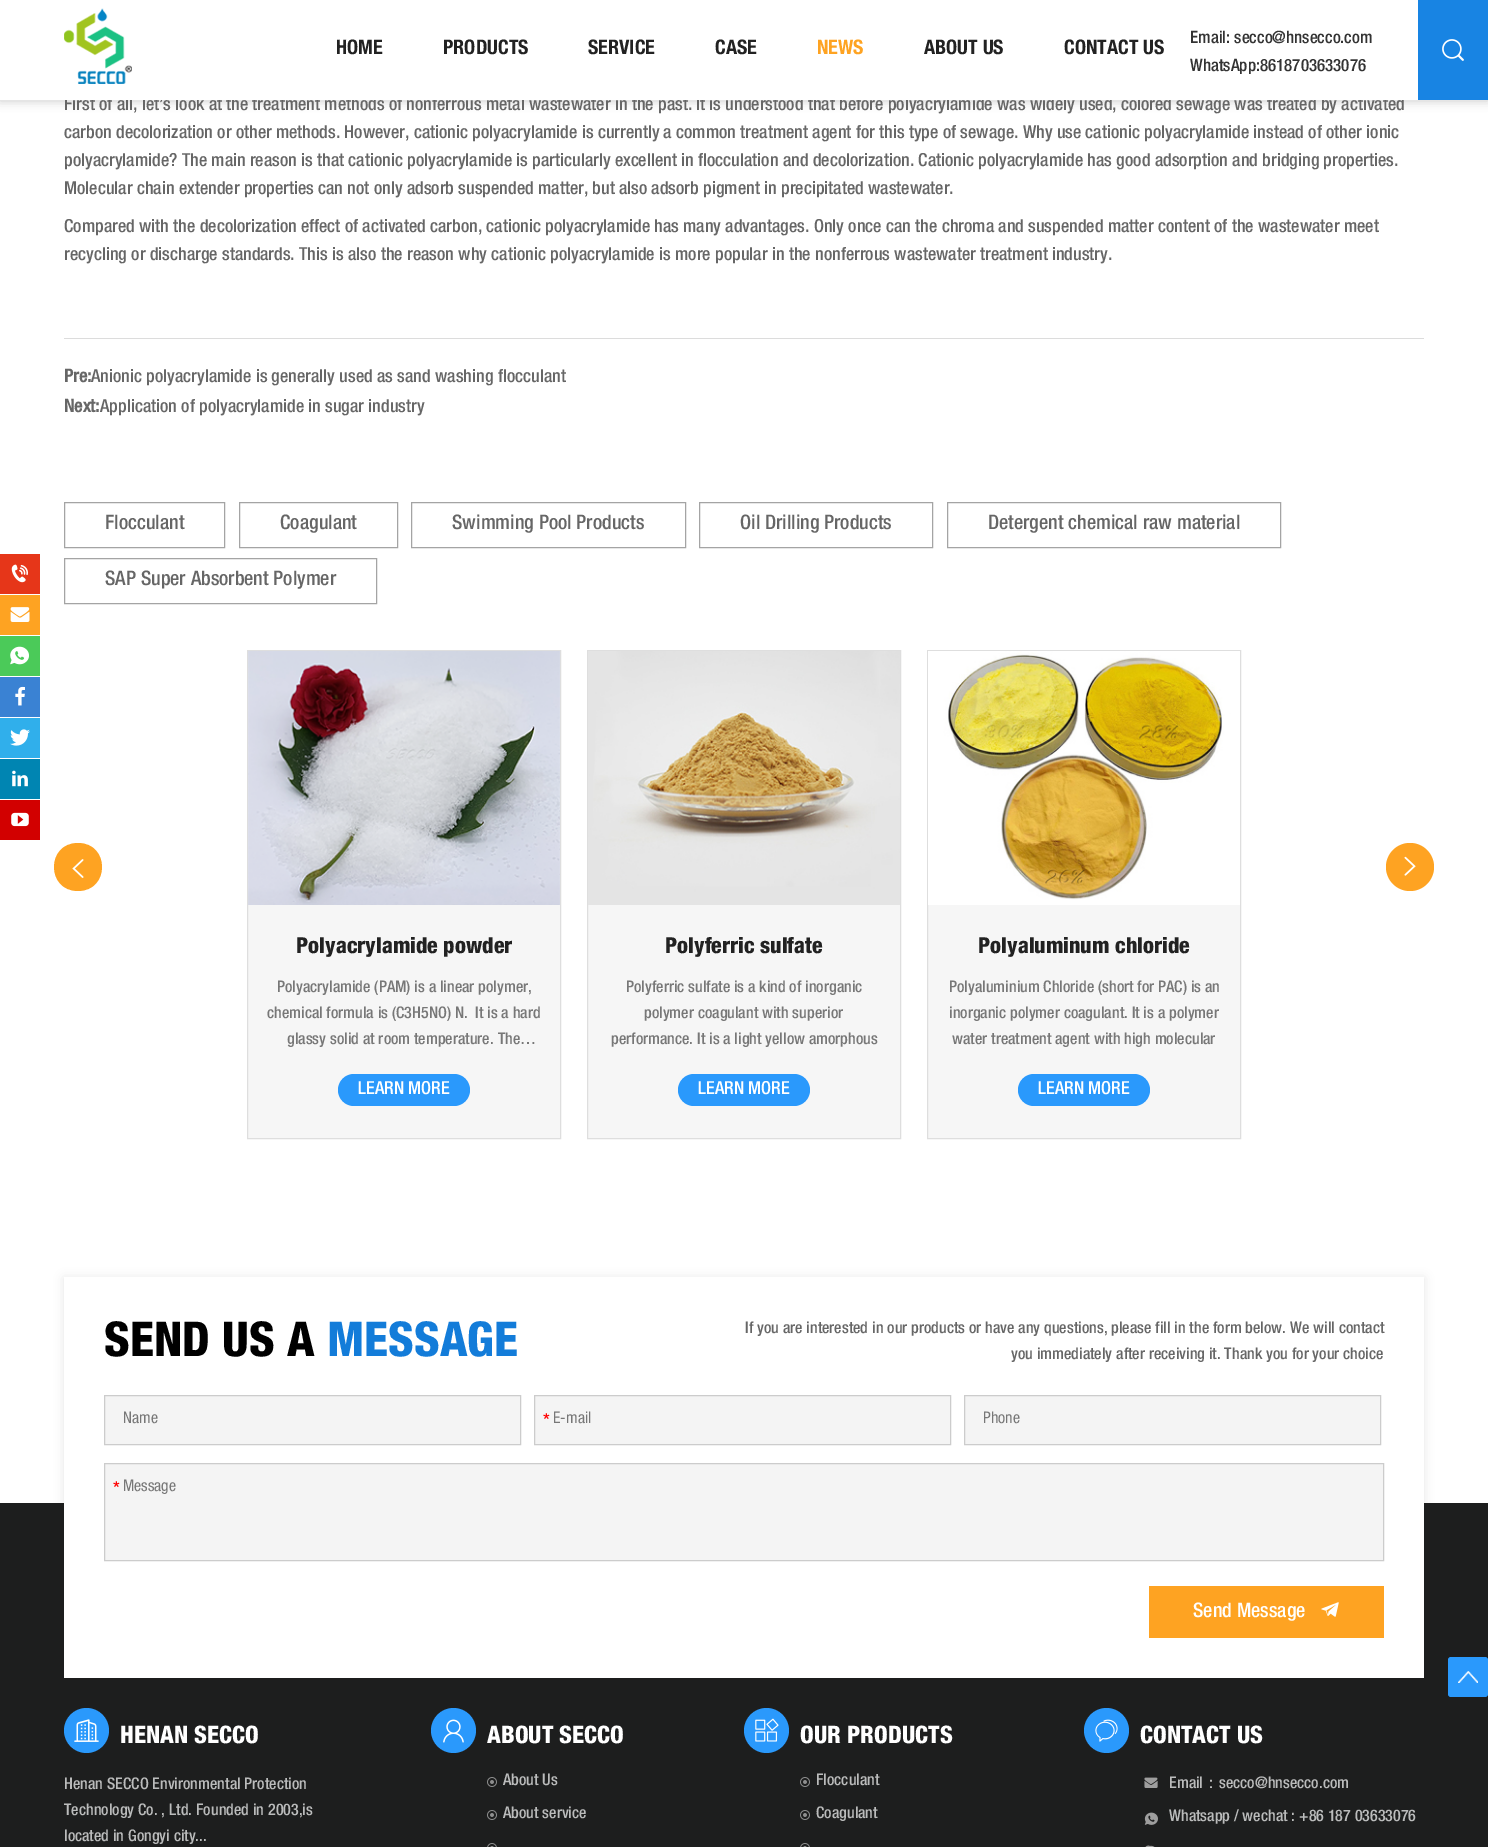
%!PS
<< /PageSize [1488 1847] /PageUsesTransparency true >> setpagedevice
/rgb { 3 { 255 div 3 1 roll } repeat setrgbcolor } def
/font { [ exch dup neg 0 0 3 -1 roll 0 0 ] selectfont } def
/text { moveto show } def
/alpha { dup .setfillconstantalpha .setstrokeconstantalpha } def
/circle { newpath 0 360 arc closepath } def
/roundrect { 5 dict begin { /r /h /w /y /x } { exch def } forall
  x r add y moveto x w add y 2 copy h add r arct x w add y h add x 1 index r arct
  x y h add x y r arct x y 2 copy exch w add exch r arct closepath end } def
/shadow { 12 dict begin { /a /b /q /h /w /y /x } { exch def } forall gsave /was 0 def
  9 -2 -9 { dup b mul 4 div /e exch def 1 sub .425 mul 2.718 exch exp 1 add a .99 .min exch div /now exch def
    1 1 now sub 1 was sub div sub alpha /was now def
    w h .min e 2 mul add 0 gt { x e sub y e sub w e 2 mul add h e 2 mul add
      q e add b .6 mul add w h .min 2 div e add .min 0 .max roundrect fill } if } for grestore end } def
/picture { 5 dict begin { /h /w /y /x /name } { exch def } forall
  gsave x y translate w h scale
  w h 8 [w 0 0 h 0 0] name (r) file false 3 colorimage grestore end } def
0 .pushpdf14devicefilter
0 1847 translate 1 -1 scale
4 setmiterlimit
255 255 255 rgb
0 0 1488 1847 rectfill
0 0 0 rgb
0 1 1488 100 0 5 0.2 shadow
24 132 227 rgb
1418 0 70 100 rectfill
(img_02.rgb) 1442 39 22 22 picture
230 54 25 rgb
0 554 40 40 rectfill
(img_03.rgb) 11 564 17 19 picture
254 163 34 rgb
0 595 40 40 rectfill
(img_04.rgb) 10 607 20 15 picture
75 202 89 rgb
0 636 40 40 rectfill
(img_05.rgb) 10 646 19 19 picture
58 130 211 rgb
0 677 40 40 rectfill
(img_06.rgb) 15 686 10 20 picture
48 175 235 rgb
0 718 40 40 rectfill
(img_07.rgb) 10 729 20 17 picture
0 133 178 rgb
0 759 40 40 rectfill
(img_08.rgb) 12 770 16 17 picture
210 0 0 rgb
0 800 40 40 rectfill
(img_09.rgb) 11 812 18 15 picture
220 220 220 rgb
64 338 1360 1 rectfill
164 164 164 rgb
64.5 502.5 160 45 rectstroke
239.5 502.5 158 45 rectstroke
411.5 502.5 274 45 rectstroke
699.5 502.5 233 45 rectstroke
947.5 502.5 333 45 rectstroke
64.5 558.5 312 45 rectstroke
254 163 34 rgb
78 891 moveto -32 0 -32 -48 0 -48 rcurveto 32 0 32 48 0 48 rcurveto closepath fill
(img_10.rgb) 72 859 12 19 picture
1410 867 24 circle fill
(img_11.rgb) 1404 856 12 20 picture
246 246 246 rgb
248 905 312 233 rectfill
222 222 222 rgb
247.5 650.5 313 488 rectstroke
(img_12.rgb) 248 651 312 254 picture
42 153 252 rgb
338 1074 132 32 16 roundrect fill
246 246 246 rgb
588 905 312 233 rectfill
222 222 222 rgb
587.5 650.5 313 488 rectstroke
(img_13.rgb) 588 651 312 254 picture
42 153 252 rgb
678 1074 132 32 16 roundrect fill
246 246 246 rgb
928 905 312 233 rectfill
222 222 222 rgb
927.5 650.5 313 488 rectstroke
(img_14.rgb) 928 651 312 254 picture
42 153 252 rgb
1018 1074 132 32 16 roundrect fill
29 30 30 rgb
0 1503 1488 344 rectfill
0 0 0 rgb
64 1278 1360 401 0 5 0.1 shadow
255 255 255 rgb
64 1277 1360 401 rectfill
244 244 244 rgb
104.5 1395.5 moveto 416 0 rlineto 0 49 rlineto -416 0 rlineto closepath gsave fill grestore
204 204 204 rgb
stroke
244 244 244 rgb
534.5 1395.5 moveto 416 0 rlineto 0 49 rlineto -416 0 rlineto closepath gsave fill grestore
204 204 204 rgb
stroke
244 244 244 rgb
964.5 1395.5 moveto 416 0 rlineto 0 49 rlineto -416 0 rlineto closepath gsave fill grestore
204 204 204 rgb
stroke
244 244 244 rgb
104.5 1463.5 moveto 1279 0 rlineto 0 97 rlineto -1279 0 rlineto closepath gsave fill grestore
204 204 204 rgb
stroke
254 163 34 rgb
1149 1586 235 52 rectfill
(img_15.rgb) 1321 1602 18 15 picture
42 153 252 rgb
86.5 1730.5 22.5 circle fill
(img_16.rgb) 74 1719 25 23 picture
453.5 1730.5 22.5 circle fill
(img_17.rgb) 443 1719 21 24 picture
(img_18.rgb) 487 1777 10 10 picture
(img_18.rgb) 487 1810 10 10 picture
(img_19.rgb) 487 1843 10 4 picture
766.5 1730.5 22.5 circle fill
(img_20.rgb) 755 1718 24 24 picture
(img_18.rgb) 800 1777 10 10 picture
(img_18.rgb) 800 1810 10 10 picture
(img_19.rgb) 800 1843 10 4 picture
1106.5 1730.5 22.5 circle fill
(img_21.rgb) 1095 1719 23 23 picture
(img_22.rgb) 1144 1777 14 11 picture
(img_23.rgb) 1144 1812 14 13 picture
(img_24.rgb) 1145 1845 10 2 picture
1448 1657 40 40 3 roundrect fill
(img_25.rgb) 1458 1671 20 12 picture
/HelveticaNeue-Medium 18 font
102 102 102 rgb
(First of all, let’s look at the treatment methods of nonferrous metal wastewater in the past. It is understood that before polyacrylamide was widely used, colored sewage was treated by activated) 64 110 text
255 255 255 rgb
0 0 1418 100 rectfill
/HelveticaNeue-Medium 17 font
51 51 51 rgb
(WhatsApp:8618703633076) 1190 71 text
(Email: secco@hnsecco.com) 1190 43 text
/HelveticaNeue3-Bold 20 font
34 34 34 rgb
(CONTACT US) 1064 54 text
(ABOUT US) 924 54 text
254 163 34 rgb
(NEWS) 817 54 text
34 34 34 rgb
(CASE) 715 54 text
(SERVICE) 588 54 text
(PRODUCTS) 443 54 text
(HOME) 336 54 text
(img_01.rgb) 64 8 68 76 picture
/HelveticaNeue-Medium 18 font
102 102 102 rgb
(carbon decolorization or other methods. However, cationic polyacrylamide is currently a common treatment agent for this type of sewage. Why use cationic polyacrylamide instead of other ionic) 64 138 text
(polyacrylamide? The main reason is that cationic polyacrylamide is particularly excellent in flocculation and decolorization. Cationic polyacrylamide has good adsorption and bridging properties.) 64 166 text
(Molecular chain extender properties can not only adsorb suspended matter, but also adsorb pigment in precipitated wastewater.) 64 194 text
(Compared with the decolorization effect of activated carbon, cationic polyacrylamide has many advantages. Only once can the chroma and suspended matter content of the wastewater meet) 64 232 text
(recycling or discharge standards. This is also the reason why cationic polyacrylamide is more popular in the nonferrous wastewater treatment industry.) 64 260 text
/HelveticaNeue-Bold 18 font
(Pre:) 64 382 text
/HelveticaNeue-Medium 18 font
(Anionic polyacrylamide is generally used as sand washing flocculant) 91 382 text
/HelveticaNeue-Bold 18 font
(Next:) 64 412 text
/HelveticaNeue-Medium 18 font
(Application of polyacrylamide in sugar industry) 100 412 text
/HelveticaNeue-Medium 20 font
(Flocculant) 105 529 text
(Coagulant) 280 529 text
(Swimming Pool Products) 452 529 text
(Oil Drilling Products) 740 529 text
(Detergent chemical raw material) 988 529 text
(SAP Super Absorbent Polymer) 105 585 text
/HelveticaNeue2-Bold 22 font
34 34 34 rgb
(Polyacrylamide powder) 296 953 text
/HelveticaNeue-Medium 16 font
119 119 119 rgb
(Polyacrylamide \(PAM\) is a linear polymer,) 277 992 text
(chemical formula is \(C3H5NO\) N.  It is a hard) 267 1018 text
(glassy solid at room temperature. The…) 287 1044 text
/HelveticaNeue-Medium 18 font
255 255 255 rgb
(LEARN MORE) 358 1094 text
/HelveticaNeue2-Bold 22 font
34 34 34 rgb
(Polyferric sulfate) 665 953 text
/HelveticaNeue-Medium 16 font
119 119 119 rgb
(Polyferric sulfate is a kind of inorganic) 626 992 text
(polymer coagulant with superior) 644 1018 text
(performance. It is a light yellow amorphous) 611 1044 text
/HelveticaNeue-Medium 18 font
255 255 255 rgb
(LEARN MORE) 698 1094 text
/HelveticaNeue2-Bold 22 font
34 34 34 rgb
(Polyaluminum chloride) 978 953 text
/HelveticaNeue-Medium 16 font
119 119 119 rgb
(Polyaluminium Chloride \(short for PAC\) is an) 949 992 text
(inorganic polymer coagulant. It is a polymer) 949 1018 text
(water treatment agent with high molecular) 952 1044 text
/HelveticaNeue-Medium 18 font
255 255 255 rgb
(LEARN MORE) 1038 1094 text
/HelveticaNeue2-Bold 48 font
0 0 0 rgb
(SEND US A) 104 1356 text
19 124 217 rgb
(MESSAGE) 327 1356 text
/HelveticaNeue-Medium 16 font
102 102 102 rgb
(If you are interested in our products or have any questions, please fill in the form below. We will contact) 745 1333 text
(you immediately after receiving it. Thank you for your choice) 1011 1359 text
/HelveticaNeue-Regular 16 font
119 119 119 rgb
(Name) 123 1423 text
/HelveticaNeue-Medium 18 font
255 0 0 rgb
(*) 543 1426 text
/HelveticaNeue-Regular 16 font
119 119 119 rgb
(E-mail) 553 1423 text
(Phone) 983 1423 text
/HelveticaNeue-Medium 18 font
255 0 0 rgb
(*) 113 1494 text
/HelveticaNeue-Regular 16 font
119 119 119 rgb
(Message) 123 1491 text
/HelveticaNeue-Medium 20 font
255 255 255 rgb
(Send Message) 1193 1617 text
/HelveticaNeue2-Bold 24 font
(HENAN SECCO) 120 1743 text
/HelveticaNeue-Medium 16 font
187 188 188 rgb
(Henan SECCO Environmental Protection) 64 1789 text
(Technology Co. , Ltd. Founded in 2003,is) 64 1815 text
(located in Gongyi city...) 64 1841 text
/HelveticaNeue2-Bold 24 font
255 255 255 rgb
(ABOUT SECCO) 487 1743 text
/HelveticaNeue-Medium 16 font
187 188 188 rgb
(About Us) 503 1785 text
(About service) 503 1818 text
/HelveticaNeue2-Bold 24 font
255 255 255 rgb
(OUR PRODUCTS) 800 1743 text
/HelveticaNeue-Medium 16 font
187 188 188 rgb
(Flocculant) 816 1785 text
(Coagulant) 816 1818 text
/HelveticaNeue2-Bold 24 font
255 255 255 rgb
(CONTACT US) 1140 1743 text
/HelveticaNeue-Medium 16 font
187 188 188 rgb
(Email) 1169 1788 text
/WenQuanYiZenHei-Medium 16 font
(：) 1203 1788 text
/HelveticaNeue-Medium 16 font
(secco@hnsecco.com) 1219 1788 text
(Whatsapp / wechat : +86 187 03633076) 1169 1821 text
.poppdf14devicefilter showpage
